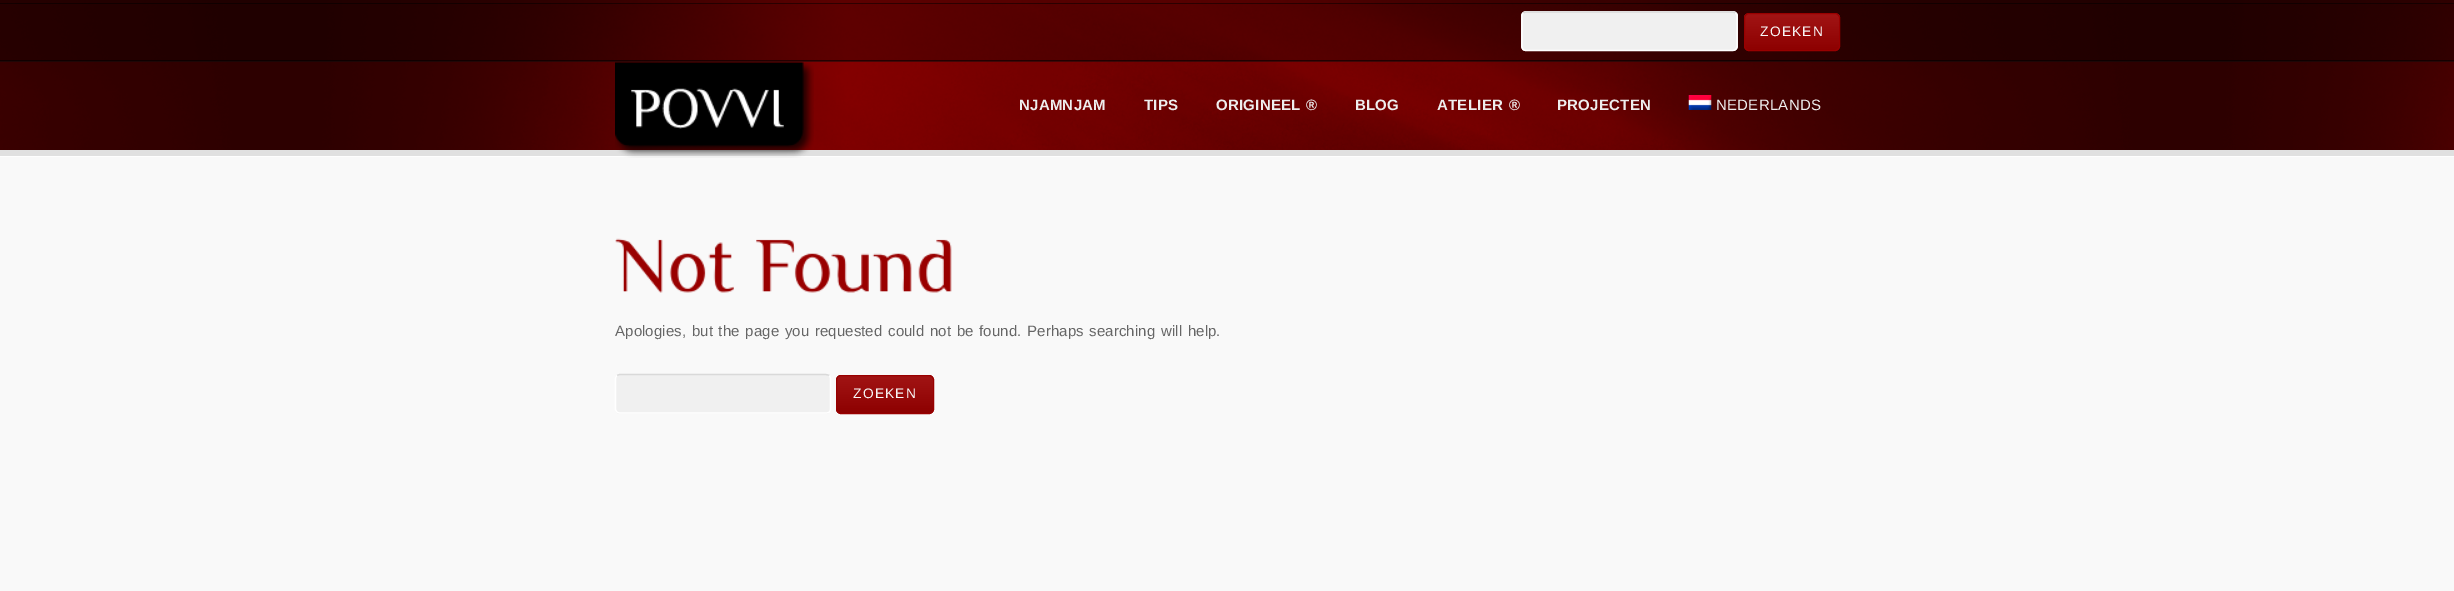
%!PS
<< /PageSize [2454 591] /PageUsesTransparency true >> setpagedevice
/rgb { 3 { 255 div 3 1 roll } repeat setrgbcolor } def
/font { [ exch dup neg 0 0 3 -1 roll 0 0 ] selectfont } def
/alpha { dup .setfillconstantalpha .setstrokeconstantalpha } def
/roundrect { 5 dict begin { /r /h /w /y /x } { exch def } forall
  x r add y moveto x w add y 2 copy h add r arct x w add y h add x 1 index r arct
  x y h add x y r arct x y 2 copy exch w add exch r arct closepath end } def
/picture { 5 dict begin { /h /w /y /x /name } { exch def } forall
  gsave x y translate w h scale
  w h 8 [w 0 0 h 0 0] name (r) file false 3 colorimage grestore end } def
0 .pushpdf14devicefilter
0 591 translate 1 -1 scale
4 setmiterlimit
255 0 0 rgb
0 0 2454 591 rectfill
(img_01.rgb) 0 0 2454 150 picture
0.5 alpha
0 0 0 rgb
0 0 2454 4 rectfill
0.6 alpha
0 60 2454 1 rectfill
0.3 alpha
0 61 2454 89 rectfill
0.05 alpha
255 255 255 rgb
0 61 2454 1 rectfill
0.5 alpha
0 0 0 rgb
0 3 2454 59 rectfill
1 alpha
240 240 240 rgb
1521 11 217 40 5 roundrect fill
217 217 217 rgb
1.2 setlinewidth
1523 13 moveto 3 -1 rlineto 207 0 rlineto 2.5 1 rlineto stroke
255 255 255 rgb
1735.5 13 moveto 1 1 1.5 2 1.5 3 rcurveto 0 30 rlineto 0 1.5 -0.5 2.5 -1.5 3.5 rcurveto -0.5 0.5 -2 1 -3 1 rcurveto -206.5 0 rlineto -1 0 -2 -0.5 -3 -1 rcurveto -0.5 -1 -1 -2 -1 -3.5 rcurveto 0 -29.5 rlineto 0 -1.5 0.5 -2.5 1 -3.5 rcurveto stroke
153 0 0 rgb
1744 13 96 38 5 roundrect fill
gsave
1744 13 96 38 5 roundrect clip newpath
0.08 alpha
gsave 1744 14 moveto 96 0 rlineto 0 36 rlineto -96 0 rlineto closepath clip newpath
<< /ShadingType 2 /ColorSpace /DeviceRGB /Coords [1792 14 1792 50] /Extend [true true] /Function << /FunctionType 2 /Domain [0 1] /C0 [1 1 1] /C1 [0 0 0] /N 1 >> >> shfill grestore
grestore
1 setlinewidth
1744.5 13.5 95 37 4.5 roundrect stroke
249 249 249 rgb
0 157 2454 434 rectfill
254 254 254 rgb
0 156 2454 1 rectfill
224 224 224 rgb
0 150 2454 6 rectfill
(img_02.rgb) 615 62 199 96 picture
(img_03.rgb) 1688 95 24 15 picture
(img_04.rgb) 615 238 119 55 picture
(img_05.rgb) 756 239 196 54 picture
240 240 240 rgb
615 374 216 40 5 roundrect fill
217 217 217 rgb
1.2 setlinewidth
617 375.5 moveto 2.5 -1 rlineto 172.5 0 rlineto 34 0 rlineto 3.5 1 rlineto stroke
255 255 255 rgb
829.5 375.5 moveto 0.5 1 1 2 1 3.5 rcurveto 0 30 rlineto 0 1 -0.5 2 -1 3 rcurveto -1 0.5 -2 1 -3.5 1 rcurveto -206 0 rlineto -1 0 -2.5 -0.5 -3 -1 rcurveto -1 -1 -1.5 -2 -1.5 -3 rcurveto 0 -30 rlineto 0 -1.5 0.5 -2.5 1.5 -3.5 rcurveto stroke
153 0 0 rgb
836 375 98 39 5 roundrect fill
gsave
836 375 98 39 5 roundrect clip newpath
0.08 alpha
gsave 836 376 moveto 98 0 rlineto 0 37 rlineto -98 0 rlineto closepath clip newpath
<< /ShadingType 2 /ColorSpace /DeviceRGB /Coords [885 376 885 413] /Extend [true true] /Function << /FunctionType 2 /Domain [0 1] /C0 [1 1 1] /C1 [0 0 0] /N 1 >> >> shfill grestore
grestore
1 setlinewidth
836.5 375.5 97 38 4.5 roundrect stroke
/LiberationSans-Regular 13.75 font
248 248 248 rgb
1760 36 moveto 1.25 0 (ZOEKEN) ashow
/LiberationSans-Bold 15 font
238 238 238 rgb
1019 110 moveto 0.25 0 (NJAMNJAM) ashow
1144 110 moveto 0.25 0 (TIPS) ashow
1216 110 moveto 1.25 0 32 0.25 0 (ORIGINEEL ®) awidthshow
1355 110 moveto 0.25 0 (BLOG) ashow
1437 110 moveto 1.25 0 32 0.25 0 (ATELIER ®) awidthshow
1557 110 moveto 0.25 0 (PROJECTEN) ashow
/LiberationSans-Regular 15 font
1716 110 moveto 0.25 0 (NEDERLANDS) ashow
102 102 102 rgb
615 336 moveto 1.25 0 32 0.12 0 (Apologies, but the page you requested could not be found. Perhaps searching will help.) awidthshow
/LiberationSans-Regular 13.75 font
248 248 248 rgb
853 398 moveto 1.25 0 (ZOEKEN) ashow
.poppdf14devicefilter showpage
